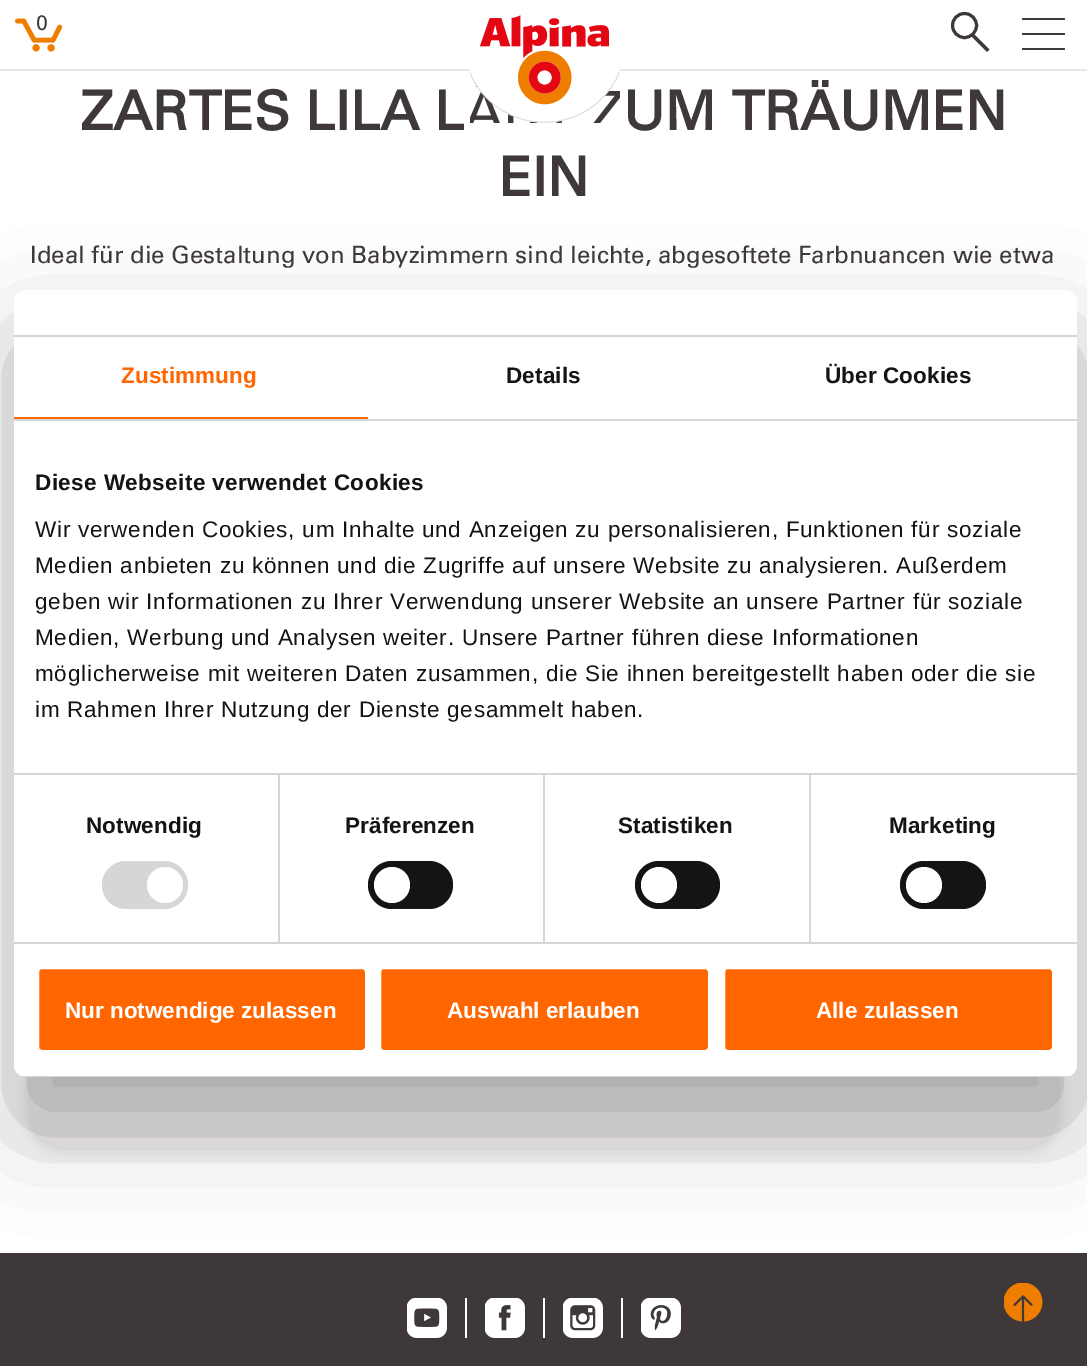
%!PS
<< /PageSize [1087 1366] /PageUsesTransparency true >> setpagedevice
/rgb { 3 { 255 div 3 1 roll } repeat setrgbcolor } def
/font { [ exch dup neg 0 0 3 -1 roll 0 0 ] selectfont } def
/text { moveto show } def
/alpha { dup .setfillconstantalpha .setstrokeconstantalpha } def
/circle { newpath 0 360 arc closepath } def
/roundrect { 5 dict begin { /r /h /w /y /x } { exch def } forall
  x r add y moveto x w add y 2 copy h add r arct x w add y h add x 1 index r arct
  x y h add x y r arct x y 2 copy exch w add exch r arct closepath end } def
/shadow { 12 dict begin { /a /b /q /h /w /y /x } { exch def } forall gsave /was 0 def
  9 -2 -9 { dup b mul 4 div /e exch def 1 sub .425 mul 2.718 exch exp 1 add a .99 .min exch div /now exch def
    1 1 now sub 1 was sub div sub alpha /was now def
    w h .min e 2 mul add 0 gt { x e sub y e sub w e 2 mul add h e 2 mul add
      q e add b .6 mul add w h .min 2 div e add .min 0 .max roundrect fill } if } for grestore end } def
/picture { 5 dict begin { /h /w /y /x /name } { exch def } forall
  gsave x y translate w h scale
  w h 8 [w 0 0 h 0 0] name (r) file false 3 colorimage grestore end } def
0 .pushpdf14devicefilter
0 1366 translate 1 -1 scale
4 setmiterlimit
255 255 255 rgb
0 0 1087 1366 rectfill
231 231 231 rgb
0 69 1087 2 rectfill
62 56 56 rgb
3 setlinewidth
964.5 25.5 12 circle stroke
973.5 33.5 moveto 16 16 rlineto -2.5 2.5 rlineto -16 -16 rlineto closepath fill
1022 33 43 2 1 roundrect fill
1022 18 43 2 1 roundrect fill
1022 48 43 2 1 roundrect fill
(img_02.rgb) 470 15 150 108 picture
0 0 0 rgb
30 525 1028 623 30 7.5 0.15 shadow
240 235 235 rgb
30 866 1028 282 30 roundrect fill
62 56 56 rgb
0 1253 1087 113 rectfill
(img_03.rgb) 1004 1283 39 39 picture
0 0 0 rgb
14 338 1063 787 12 51 0.3 shadow
255 255 255 rgb
14 290 1063 787 12 roundrect fill
214 214 214 rgb
14 335 1063 2 rectfill
14 419 1063 2 rectfill
255 102 0 rgb
14 417 354 2 rectfill
214 214 214 rgb
278 774 2 168 rectfill
543 774 2 168 rectfill
809 774 2 168 rectfill
14 773 1063 2 rectfill
14 942 1063 2 rectfill
102 861 86 48 24 roundrect fill
255 255 255 rgb
165 885 18 circle fill
20 20 20 rgb
368 861 85 48 24 roundrect fill
255 255 255 rgb
392 885 18 circle fill
20 20 20 rgb
635 861 85 48 24 roundrect fill
255 255 255 rgb
659 885 18 circle fill
20 20 20 rgb
900 861 86 48 24 roundrect fill
255 255 255 rgb
924 885 18 circle fill
gsave
14 290 1063 787 12 roundrect clip newpath
214 214 214 rgb
14 1076 1063 1 rectfill
grestore
255 102 0 rgb
37.5 967.5 329 84 4.5 roundrect gsave fill grestore
255 255 255 rgb
stroke
255 102 0 rgb
379.5 967.5 330 84 4.5 roundrect gsave fill grestore
255 255 255 rgb
stroke
255 102 0 rgb
723.5 967.5 330 84 4.5 roundrect gsave fill grestore
255 255 255 rgb
stroke
465 1298 2 40 rectfill
(img_04.rgb) 407 1298 40 40 picture
543 1298 2 40 rectfill
(img_05.rgb) 485 1298 40 40 picture
621 1298 2 40 rectfill
(img_06.rgb) 563 1298 40 40 picture
(img_07.rgb) 641 1298 40 40 picture
/Univers-Regular 21 font
62 56 56 rgb
(0) 36 30 text
(img_01.rgb) 15 18 48 34 picture
/Univers-Bold 54 font
(ZARTES LILA L) 80 130 text
(UM TRÄUMEN) 623 130 text
(EIN) 499 196 text
/Univers-Regular 24 font
(Ideal für die Gestaltung von Babyzimmern sind leichte, abgesoftete Farbnuancen wie etwa) 30 263 text
/LiberationSans-Bold 22.5 font
255 102 0 rgb
121 383 moveto 0.1 0 (Zustimmung) ashow
20 20 20 rgb
506 383 moveto 0.1 0 (Details) ashow
825 383 moveto 0.1 0 (Über Cookies) ashow
35 490 moveto 0.4 0 (Diese Webseite verwendet Cookies) ashow
/LiberationSans-Regular 22.5 font
35 537 moveto 0.75 0 (Wir verwenden Cookies, um Inhalte und Anzeigen zu personalisieren, Funktionen für soziale) ashow
35 573 moveto 0.75 0 (Medien anbieten zu können und die Zugriffe auf unsere Website zu analysieren. Außerdem) ashow
35 609 moveto 0.75 0 (geben wir Informationen zu Ihrer Verwendung unserer Website an unsere Partner für soziale) ashow
35 645 moveto 0.75 0 (Medien, Werbung und Analysen weiter. Unsere Partner führen diese Informationen) ashow
35 681 moveto 0.75 0 (möglicherweise mit weiteren Daten zusammen, die Sie ihnen bereitgestellt haben oder die sie) ashow
35 717 moveto 0.75 0 (im Rahmen Ihrer Nutzung der Dienste gesammelt haben.) ashow
/LiberationSans-Bold 22.5 font
86 833 moveto 0.1 0 (Notwendig) ashow
345 833 moveto 0.1 0 (Präferenzen) ashow
618 833 moveto 0.1 0 (Statistiken) ashow
889 833 moveto 0.1 0 (Marketing) ashow
255 255 255 rgb
(Nur notwendige zulassen) 65 1018 text
(Auswahl erlauben) 447 1018 text
(Alle zulassen) 816 1018 text
.poppdf14devicefilter showpage
